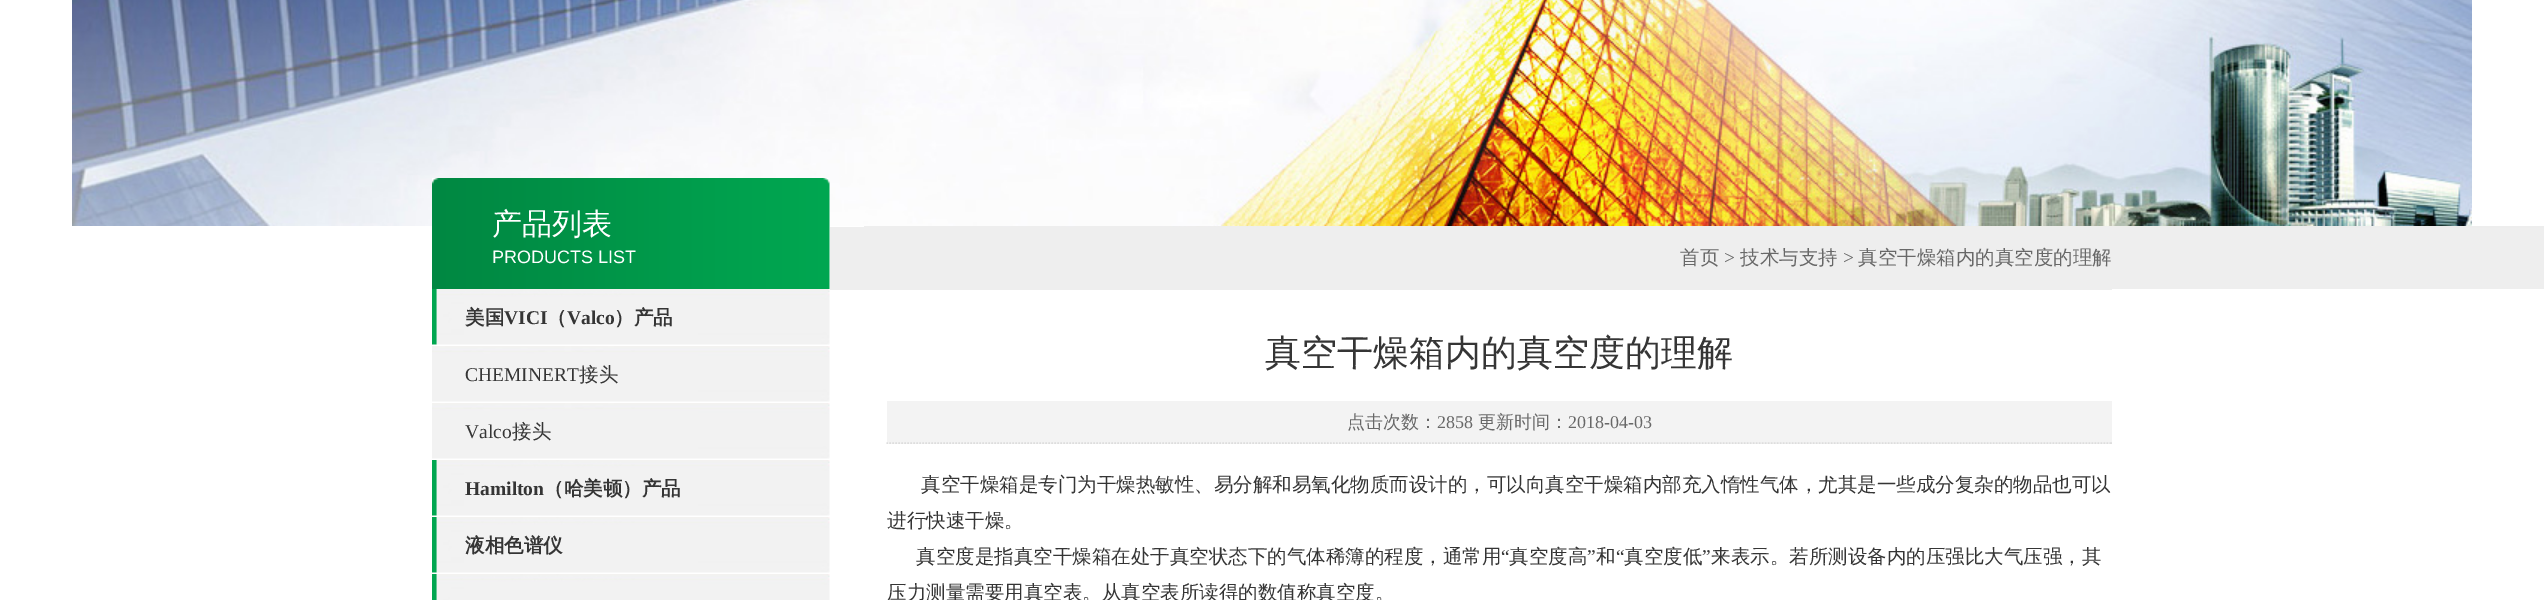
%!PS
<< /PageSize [2544 600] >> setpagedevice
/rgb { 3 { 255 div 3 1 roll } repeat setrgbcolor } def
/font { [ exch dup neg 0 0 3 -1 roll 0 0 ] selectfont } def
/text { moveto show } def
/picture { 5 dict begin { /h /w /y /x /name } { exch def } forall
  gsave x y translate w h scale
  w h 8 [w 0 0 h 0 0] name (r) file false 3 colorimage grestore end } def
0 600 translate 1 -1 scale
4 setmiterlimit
255 255 255 rgb
0 0 2544 600 rectfill
(img_01.rgb) 864 226 1680 63 picture
(img_02.rgb) 72 0 2400 226 picture
(img_03.rgb) 432 178 398 111 picture
(img_04.rgb) 432 289 398 56 picture
(img_05.rgb) 432 346 398 56 picture
(img_05.rgb) 432 403 398 56 picture
(img_04.rgb) 432 460 398 56 picture
(img_04.rgb) 432 517 398 56 picture
(img_06.rgb) 432 574 398 26 picture
238 238 238 rgb
830 227 1282 63 rectfill
243 243 243 rgb
887 401 1225 43 rectfill
221 221 221 rgb
1.5 setlinewidth
[1.5 1.5] 0 setdash
886.5 443 moveto 1225.5 0 rlineto stroke
/WenQuanYiZenHei-Medium 30 font
255 255 255 rgb
(产品列表) 492 234 text
/LiberationSans-Regular 18 font
(PRODUCTS LIST) 492 263 text
/WenQuanYiZenHei-Bold 19.5 font
53 53 53 rgb
(美国) 465 324 text
/LiberationSerif-Bold 19.5 font
(VICI) 504 324 text
/WenQuanYiZenHei-Bold 19.5 font
(（) 547 324 text
/LiberationSerif-Bold 19.5 font
(Valco) 567 324 text
/WenQuanYiZenHei-Bold 19.5 font
(）产品) 614 324 text
/LiberationSerif-Regular 19.5 font
(CHEMINERT) 465 381 text
/WenQuanYiZenHei-Medium 19.5 font
(接头) 579 381 text
/LiberationSerif-Regular 19.5 font
(Valco) 465 438 text
/WenQuanYiZenHei-Medium 19.5 font
(接头) 512 438 text
/LiberationSerif-Bold 19.5 font
(Hamilton) 465 495 text
/WenQuanYiZenHei-Bold 19.5 font
(（哈美顿）产品) 544 495 text
(液相色谱仪) 465 552 text
/WenQuanYiZenHei-Medium 19.5 font
104 104 104 rgb
(首页) 1680 264 text
/LiberationSerif-Regular 19.5 font
(>) 1724 264 text
/WenQuanYiZenHei-Medium 19.5 font
(技术与支持) 1740 264 text
/LiberationSerif-Regular 19.5 font
(>) 1843 264 text
/WenQuanYiZenHei-Medium 19.5 font
(真空干燥箱内的真空度的理解) 1858 264 text
/WenQuanYiZenHei-Medium 36 font
53 53 53 rgb
(真空干燥箱内的真空度的理解) 1265 365 text
/WenQuanYiZenHei-Medium 18 font
104 104 104 rgb
(点击次数：) 1347 428 text
/LiberationSerif-Regular 18 font
(2858) 1437 428 text
/WenQuanYiZenHei-Medium 18 font
(更新时间：) 1478 428 text
/LiberationSerif-Regular 18 font
(2018-04-03) 1568 428 text
/WenQuanYiZenHei-Medium 19.5 font
53 53 53 rgb
(真空干燥箱是专门为干燥热敏性、易分解和易氧化物质而设计的，可以向真空干燥箱内部充入惰性气体，尤其是一些成分复杂的物品也可以) 921 491 text
(进行快速干燥。) 887 527 text
(真空度是指真空干燥箱在处于真空状态下的气体稀簿的程度，通常用) 916 563 text
/LiberationSerif-Regular 19.5 font
(“) 1501 563 text
/WenQuanYiZenHei-Medium 19.5 font
(真空度高) 1509 563 text
/LiberationSerif-Regular 19.5 font
(”) 1587 563 text
/WenQuanYiZenHei-Medium 19.5 font
(和) 1596 563 text
/LiberationSerif-Regular 19.5 font
(“) 1616 563 text
/WenQuanYiZenHei-Medium 19.5 font
(真空度低) 1624 563 text
/LiberationSerif-Regular 19.5 font
(”) 1702 563 text
/WenQuanYiZenHei-Medium 19.5 font
(来表示。若所测设备内的压强比大气压强，其) 1711 563 text
(压力测量需要用真空表。从真空表所读得的数值称真空度。) 887 599 text
showpage
